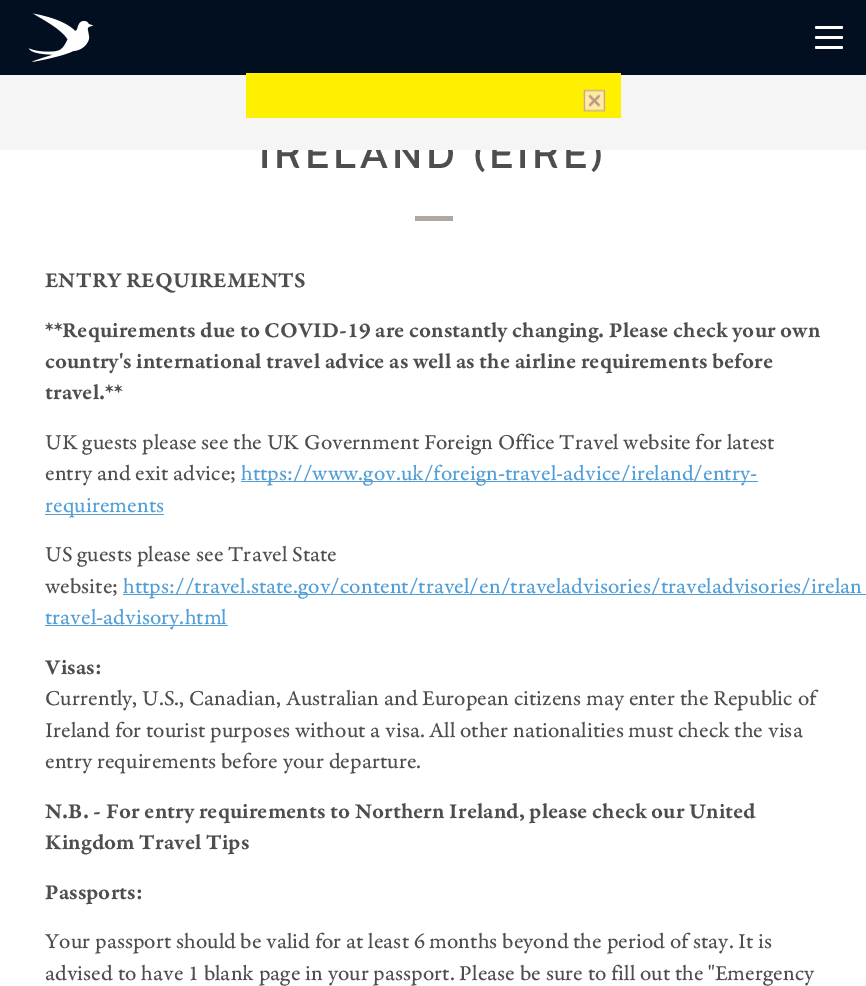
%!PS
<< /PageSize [866 986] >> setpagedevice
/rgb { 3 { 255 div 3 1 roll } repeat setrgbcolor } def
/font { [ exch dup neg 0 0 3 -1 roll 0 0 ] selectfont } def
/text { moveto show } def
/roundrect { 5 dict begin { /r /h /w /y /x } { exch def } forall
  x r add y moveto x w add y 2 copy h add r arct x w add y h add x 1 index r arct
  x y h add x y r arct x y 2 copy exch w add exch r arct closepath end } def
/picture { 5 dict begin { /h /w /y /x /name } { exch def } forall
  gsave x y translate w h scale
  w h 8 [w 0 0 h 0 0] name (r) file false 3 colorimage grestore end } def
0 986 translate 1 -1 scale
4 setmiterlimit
255 255 255 rgb
0 0 866 986 rectfill
2 15 32 rgb
0 0 866 75 rectfill
(img_02.rgb) 28 13 66 49 picture
255 255 255 rgb
815 36 28 3 1.5 roundrect fill
815 26 28 3 1.5 roundrect fill
815 46 28 3 1.5 roundrect fill
175 167 160 rgb
415 216 38 5 rectfill
82 158 214 rgb
241 481 517 1 rectfill
45 514 119 1 rectfill
123 594 743 1 rectfill
45 625 183 1 rectfill
/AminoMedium-Regular 40.5 font
79 77 77 rgb
259 168 moveto 4 0 (IRELAND \(EIRE\)) ashow
245 245 245 rgb
0 75 866 75 rectfill
255 240 0 rgb
246 73 375 45 rectfill
(img_01.rgb) 583 89 23 23 picture
/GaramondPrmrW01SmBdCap-SemiBold 22.5 font
79 77 77 rgb
(ENTRY REQUIREMENTS) 45 287 text
(**Requirements due to COVID-19 are constantly changing. Please check your own) 45 337 text
(country's international travel advice as well as the airline requirements before) 45 368 text
(travel.**) 45 399 text
/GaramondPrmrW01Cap-Regular 22.5 font
(UK guests please see the UK Government Foreign Office Travel website for latest) 45 449 text
(entry and exit advice;) 45 480 text
82 158 214 rgb
(https://www.gov.uk/foreign-travel-advice/ireland/entry-) 241 480 text
(requirements) 45 512 text
79 77 77 rgb
(US guests please see Travel State) 45 561 text
(website;) 45 593 text
82 158 214 rgb
(https://travel.state.gov/content/travel/en/traveladvisories/traveladvisories/irelan) 123 593 text
(travel-advisory.html) 45 624 text
/GaramondPrmrW01SmBdCap-SemiBold 22.5 font
79 77 77 rgb
(Visas:) 45 674 text
/GaramondPrmrW01Cap-Regular 22.5 font
(Currently, U.S., Canadian, Australian and European citizens may enter the Republic of) 45 705 text
(Ireland for tourist purposes without a visa. All other nationalities must check the visa) 45 737 text
(entry requirements before your departure.) 45 768 text
/GaramondPrmrW01SmBdCap-SemiBold 22.5 font
(N.B. - For entry requirements to Northern Ireland, please check our United) 45 818 text
(Kingdom Travel Tips) 45 849 text
(Passports:) 45 899 text
/GaramondPrmrW01Cap-Regular 22.5 font
(Your passport should be valid for at least 6 months beyond the period of stay. It is) 45 948 text
(advised to have 1 blank page in your passport. Please be sure to fill out the "Emergency) 45 980 text
showpage
